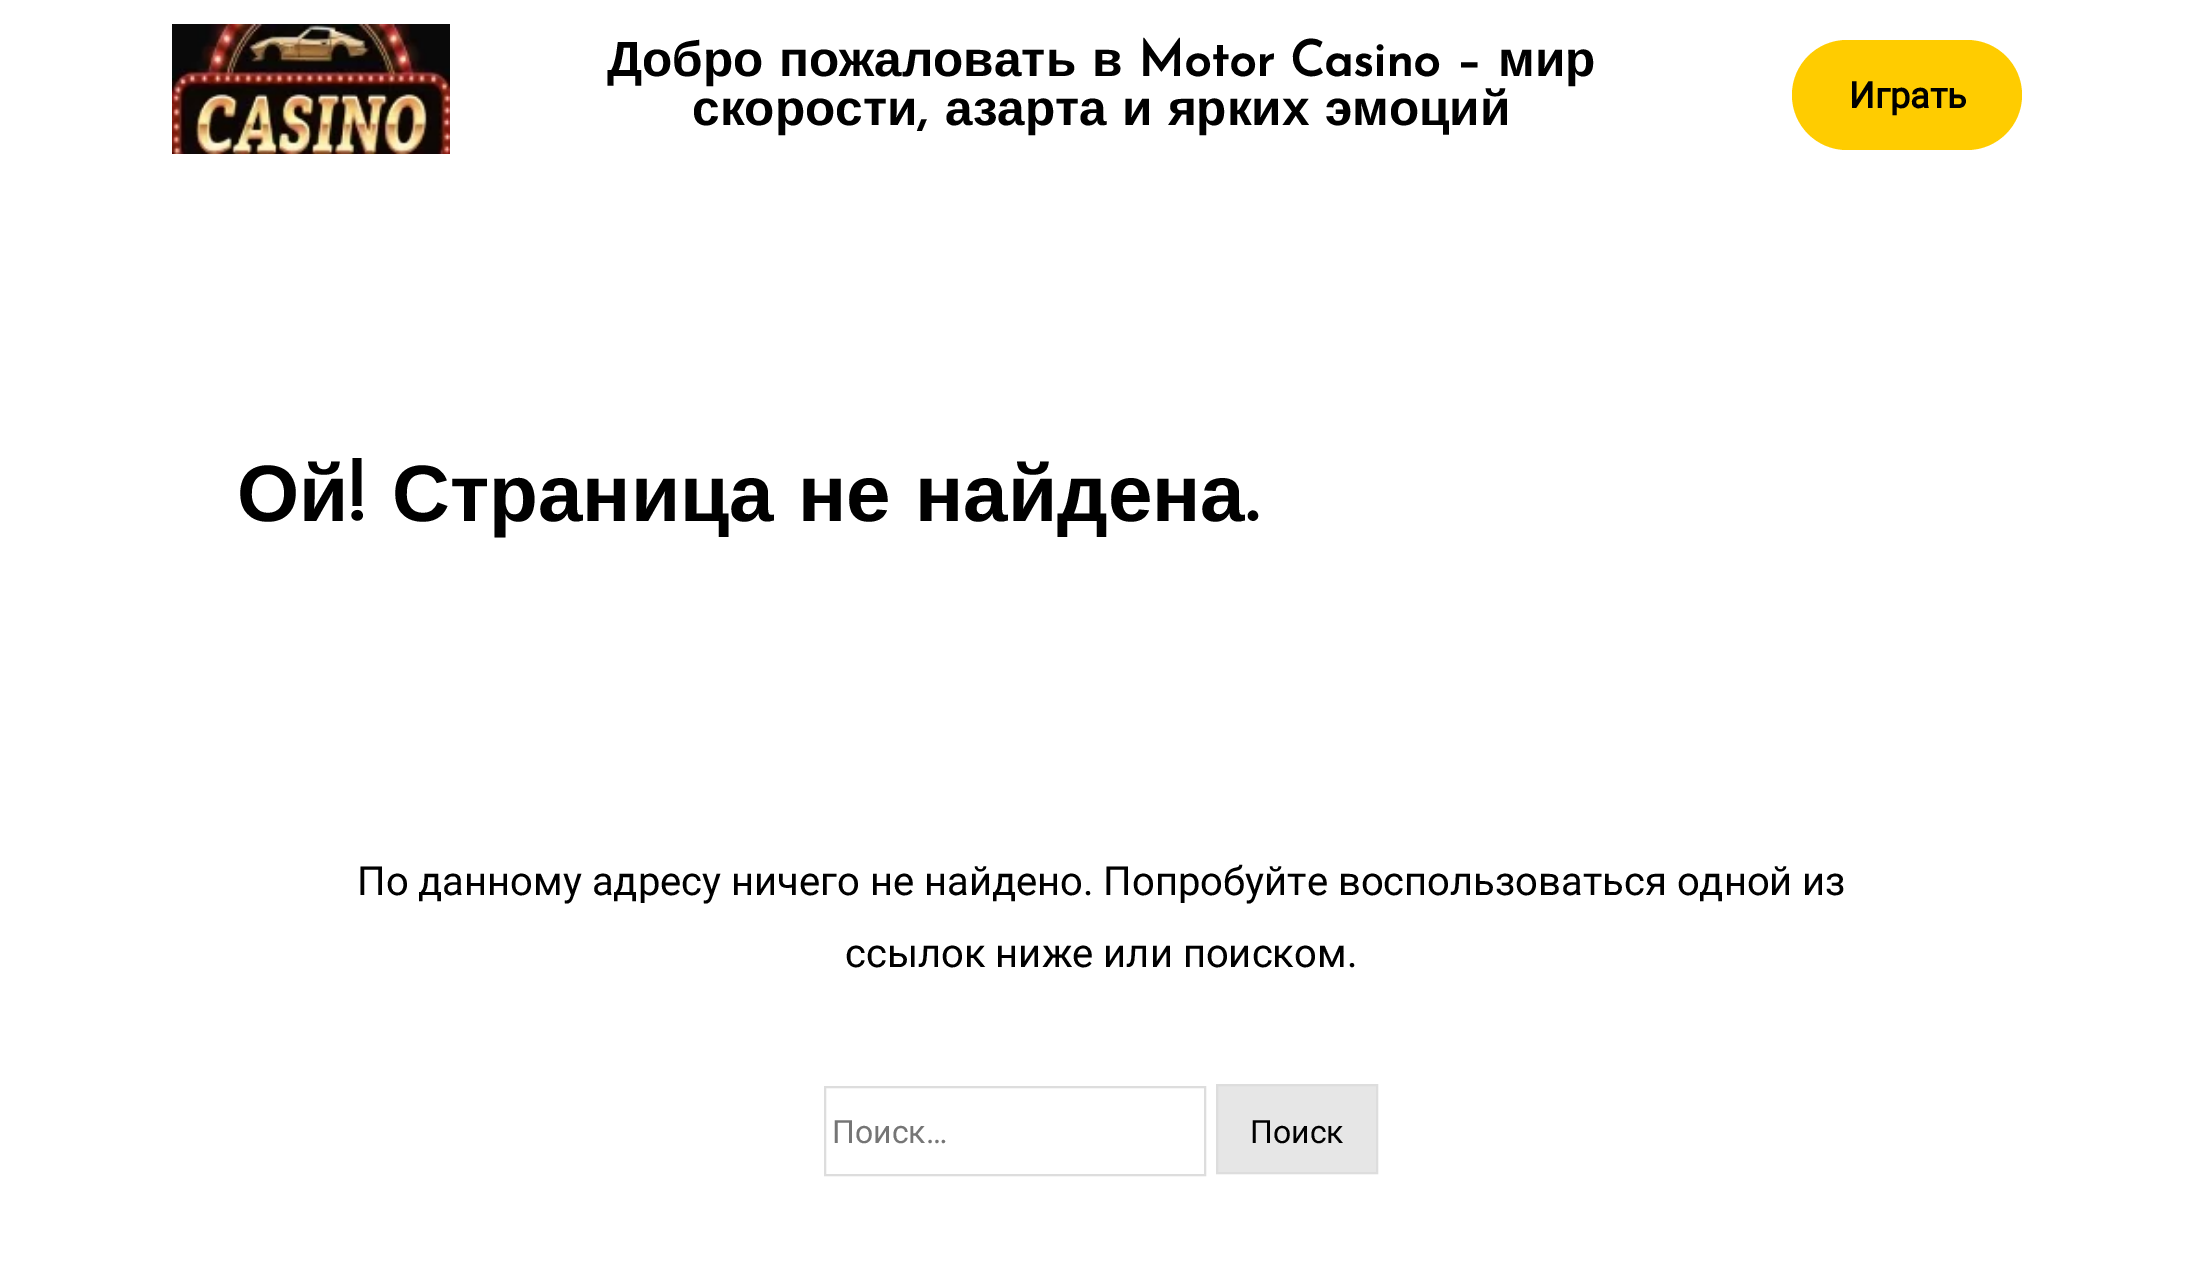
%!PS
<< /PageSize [2202 1270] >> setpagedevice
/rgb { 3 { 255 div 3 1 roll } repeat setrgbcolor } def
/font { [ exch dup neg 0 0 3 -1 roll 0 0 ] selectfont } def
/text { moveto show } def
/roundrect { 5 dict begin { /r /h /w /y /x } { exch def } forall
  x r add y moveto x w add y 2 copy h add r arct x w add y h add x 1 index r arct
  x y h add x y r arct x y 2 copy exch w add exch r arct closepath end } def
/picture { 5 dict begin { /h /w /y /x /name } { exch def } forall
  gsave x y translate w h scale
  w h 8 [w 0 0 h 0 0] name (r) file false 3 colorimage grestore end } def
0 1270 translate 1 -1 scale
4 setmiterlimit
255 255 255 rgb
0 0 2202 1270 rectfill
(img_01.rgb) 172 24 278 130 picture
255 204 0 rgb
1792 40 230 110 55 roundrect fill
221 221 221 rgb
2 setlinewidth
825 1087 380 88 rectstroke
230 230 230 rgb
1217 1085 moveto 160 0 rlineto 0 88 rlineto -160 0 rlineto closepath gsave fill grestore
221 221 221 rgb
stroke
/LiberationSans-Bold 49.5 font
0 0 0 rgb
(Добро) 607 76 text
(пожаловать) 779 76 text
(в) 1092 76 text
/JosefinSans-Bold 49.5 font
(Motor Casino –) 1138 76 text
/LiberationSans-Bold 49.5 font
(мир) 1498 76 text
(скорости) 692 125 text
/JosefinSans-Bold 49.5 font
(,) 917 125 text
/LiberationSans-Bold 49.5 font
945 125 moveto 1.5 0 32 (азарта и ярких эмоций) widthshow
/Roboto-Bold 36 font
(Играть) 1849 108 text
/LiberationSans-Bold 80 font
(Ой) 237 521 text
/JosefinSans-Bold 80 font
(!) 348 521 text
/LiberationSans-Bold 80 font
392 521 moveto 2 0 32 (Страница не найдена) widthshow
/JosefinSans-Bold 80 font
(.) 1245 521 text
/Roboto-Regular 40 font
(По данному адресу ничего не найдено. Попробуйте воспользоваться одной из) 357 895 text
(ссылок ниже или поиском.) 845 967 text
/Roboto-Regular 32 font
117 117 117 rgb
(Поиск…) 832 1143 text
0 0 0 rgb
(Поиск) 1250 1143 text
showpage
